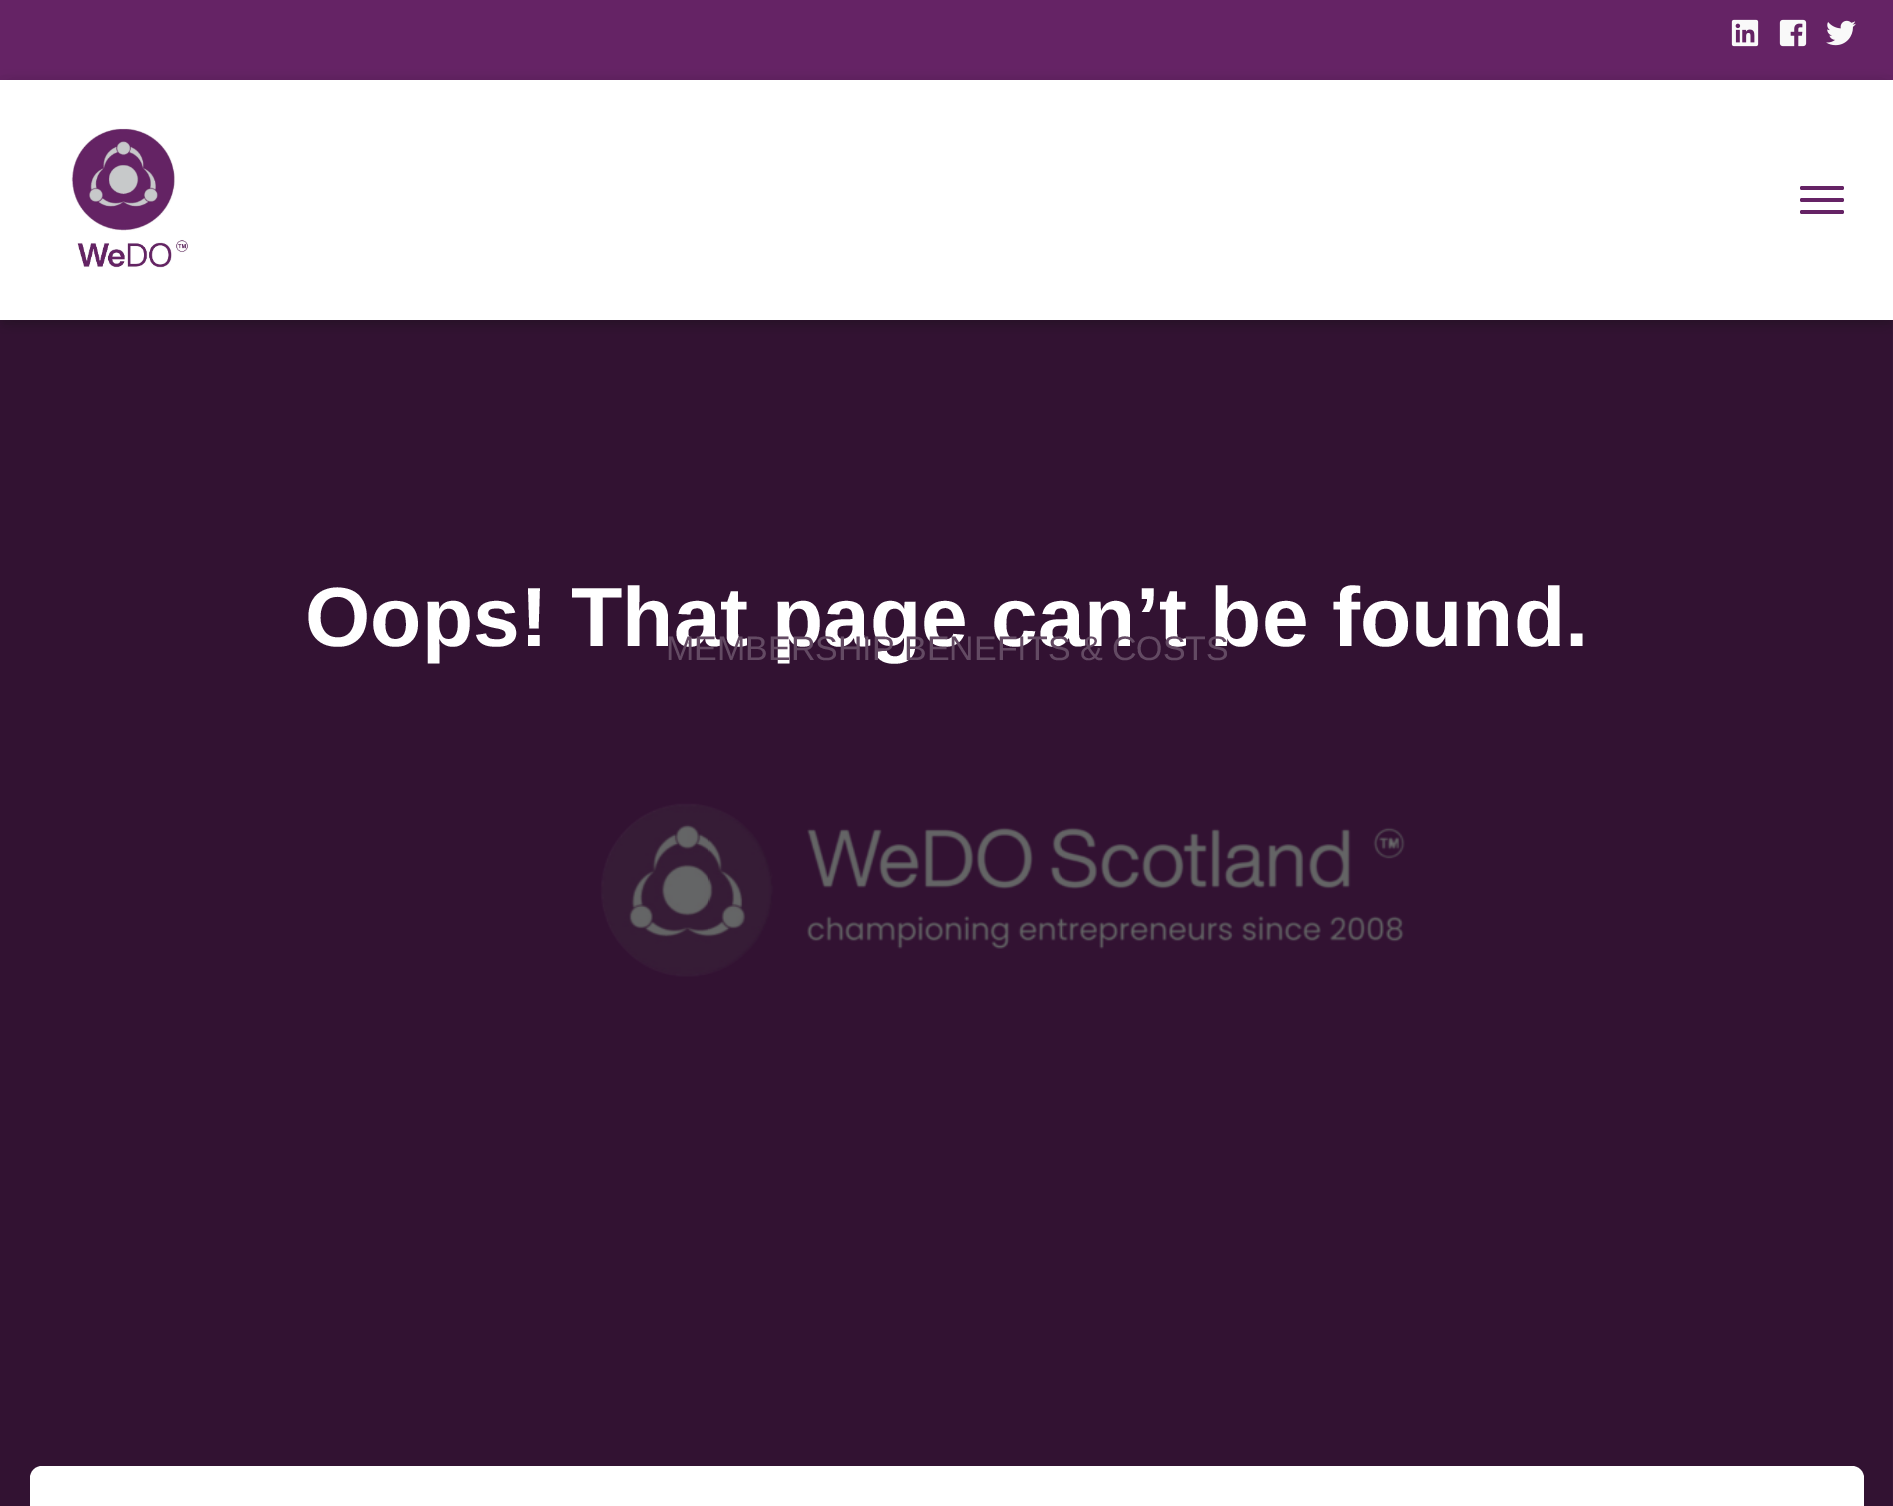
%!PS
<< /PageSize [1893 1506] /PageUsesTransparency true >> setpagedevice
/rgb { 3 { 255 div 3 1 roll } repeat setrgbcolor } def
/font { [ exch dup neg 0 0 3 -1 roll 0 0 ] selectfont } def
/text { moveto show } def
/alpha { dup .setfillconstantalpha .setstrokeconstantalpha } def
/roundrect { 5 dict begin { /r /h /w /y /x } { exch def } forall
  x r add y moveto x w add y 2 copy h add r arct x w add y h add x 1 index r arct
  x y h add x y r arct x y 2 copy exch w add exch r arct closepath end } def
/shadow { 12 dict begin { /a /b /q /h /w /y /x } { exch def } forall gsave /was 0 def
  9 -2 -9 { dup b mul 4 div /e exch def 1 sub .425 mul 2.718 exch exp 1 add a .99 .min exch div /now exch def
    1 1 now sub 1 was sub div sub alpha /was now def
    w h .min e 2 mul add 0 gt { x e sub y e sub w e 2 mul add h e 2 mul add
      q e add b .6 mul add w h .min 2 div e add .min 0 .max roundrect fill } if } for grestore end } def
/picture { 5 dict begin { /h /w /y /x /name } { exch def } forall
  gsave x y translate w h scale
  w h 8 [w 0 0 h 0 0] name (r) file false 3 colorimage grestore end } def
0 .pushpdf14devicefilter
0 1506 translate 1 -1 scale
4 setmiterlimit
255 255 255 rgb
0 0 1893 1506 rectfill
(img_01.rgb) 1892 320 1 969 picture
(img_02.rgb) 0 320 1893 1186 picture
101 35 101 rgb
0 0 1893 80 rectfill
(img_03.rgb) 1731 19 28 28 picture
(img_04.rgb) 1779 19 28 28 picture
(img_05.rgb) 1826 20 30 26 picture
0 0 0 rgb
4 92 1886 232 0 5 0.1 shadow
0 82 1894 240 0 10 0.12 shadow
12 94 1870 216 0 10 0.42 shadow
255 255 255 rgb
0 80 1893 240 rectfill
(img_06.rgb) 71 128 117 140 picture
101 35 101 rgb
1800 186 44 4 2 roundrect fill
1800 198 44 4 2 roundrect fill
1800 210 44 4 2 roundrect fill
255 255 255 rgb
42 1466 moveto 1810 0 rlineto 6.5 0 12 5.5 12 12 rcurveto 0 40 rlineto -1834 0 rlineto 0 -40 rlineto 0 -6.5 5.5 -12 12 -12 rcurveto closepath fill
/LiberationSans-Bold 84 font
(Oops! That page can’t be found.) 305 646 text
/LiberationSans-Regular 34 font
99 74 99 rgb
(MEMBERSHIP BENEFITS & COSTS) 666 660 text
.poppdf14devicefilter showpage
